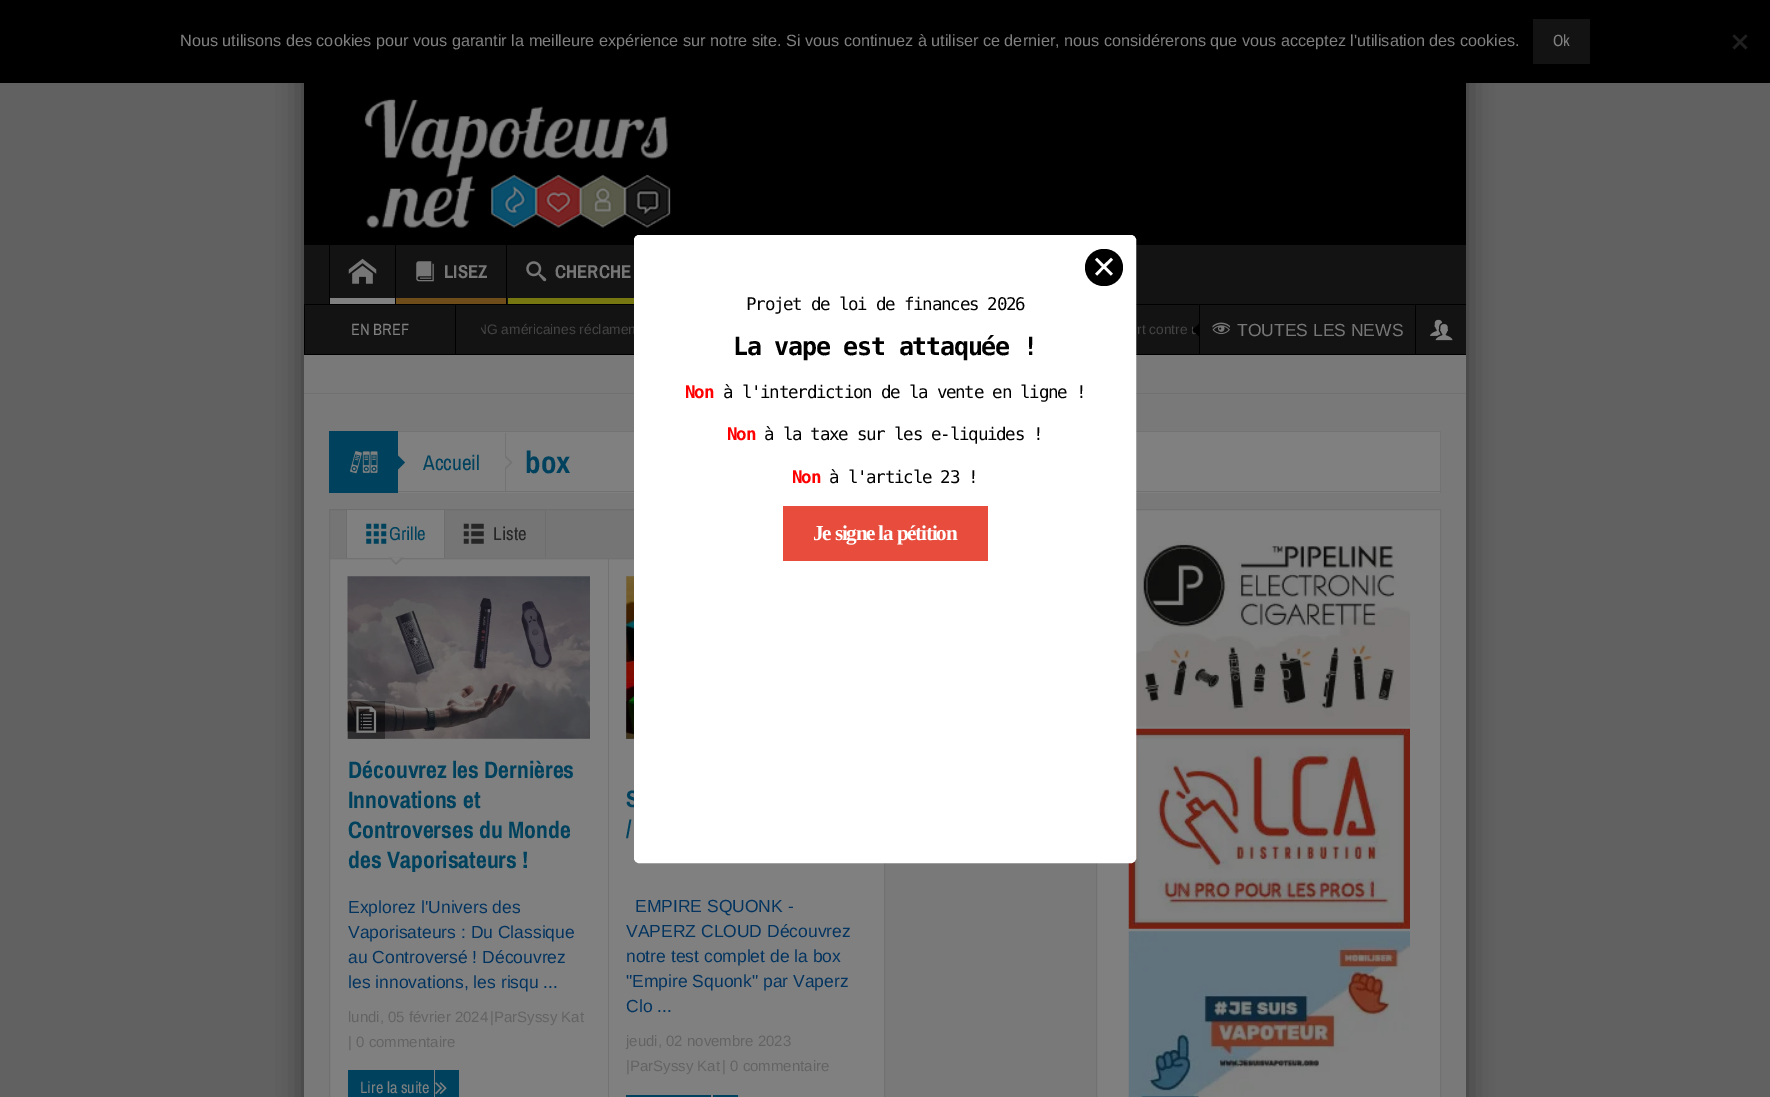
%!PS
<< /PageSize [1770 1097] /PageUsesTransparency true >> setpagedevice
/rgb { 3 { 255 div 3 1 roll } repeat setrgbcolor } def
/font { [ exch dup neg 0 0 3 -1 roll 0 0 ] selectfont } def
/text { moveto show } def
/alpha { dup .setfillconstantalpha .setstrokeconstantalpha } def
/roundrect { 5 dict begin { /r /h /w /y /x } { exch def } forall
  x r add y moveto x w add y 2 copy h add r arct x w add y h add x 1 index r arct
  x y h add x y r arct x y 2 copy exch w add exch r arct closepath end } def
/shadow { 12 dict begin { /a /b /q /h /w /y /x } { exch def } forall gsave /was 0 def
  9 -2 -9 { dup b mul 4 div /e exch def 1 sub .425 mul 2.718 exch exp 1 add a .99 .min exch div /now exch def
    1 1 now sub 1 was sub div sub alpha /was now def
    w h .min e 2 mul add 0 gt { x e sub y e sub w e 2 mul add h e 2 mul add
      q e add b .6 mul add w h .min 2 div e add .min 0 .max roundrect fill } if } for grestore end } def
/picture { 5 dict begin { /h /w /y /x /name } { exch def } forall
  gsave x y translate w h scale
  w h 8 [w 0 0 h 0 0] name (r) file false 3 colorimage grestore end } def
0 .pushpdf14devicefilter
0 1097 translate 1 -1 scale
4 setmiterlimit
97 97 97 rgb
0 0 1770 1097 rectfill
0 0 0 rgb
304 38 1162 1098 0 13 0.44 shadow
0 0 1770 83 rectfill
19 19 19 rgb
1533 19 57 45 rectfill
32 32 32 rgb
1745.5 34.5 moveto 2 1.5 rlineto -13 13.5 rlineto -2 -2 rlineto closepath fill
1732.5 36 moveto 2 -1.5 rlineto 13 13 rlineto -2 2 rlineto closepath fill
121 121 121 rgb
304 355 1162 742 rectfill
0 0 0 rgb
304 83 1162 162 rectfill
(img_01.rgb) 364 98 307 130 picture
19 19 19 rgb
304 245 1162 59 rectfill
0 0 0 rgb
304 304 1162 1 rectfill
395 245 1 59 rectfill
329 245 1 59 rectfill
(img_02.rgb) 348 258 29 26 picture
128 128 128 rgb
330 298 65 6 rectfill
0 0 0 rgb
506 245 1 59 rectfill
(img_03.rgb) 416 261 18 21 picture
111 77 26 rgb
396 298 110 6 rectfill
(img_04.rgb) 526 261 21 21 picture
119 119 17 rgb
508 298 126 6 rectfill
19 19 19 rgb
305 305 894 49 rectfill
0 0 0 rgb
304 354 1162 1 rectfill
455 305 1 49 rectfill
304 305 1 49 rectfill
19 19 19 rgb
1200 305 215 49 rectfill
0 0 0 rgb
1199 305 1 49 rectfill
(img_05.rgb) 1212 322 18 13 picture
19 19 19 rgb
1416 305 50 49 rectfill
0 0 0 rgb
1415 305 1 49 rectfill
(img_06.rgb) 1430 319 23 22 picture
113 113 113 rgb
304 393 1162 1 rectfill
128 128 128 rgb
398 432 1042 61 rectfill
115 115 115 rgb
398 431 1043 1 rectfill
1440 431 1 62 rectfill
113 113 113 rgb
398 491 1043 1 rectfill
0 66 93 rgb
329 431 69 62 rectfill
(img_07.rgb) 350 451 28 23 picture
397.5 470 moveto 0 -15 rlineto 7.5 7.5 rlineto closepath fill
115 115 115 rgb
505 433 1 58 rectfill
505 470 moveto 0 -15 rlineto 7.5 7.5 rlineto closepath fill
128 128 128 rgb
505 467.5 moveto 0 -10 rlineto 5 5 rlineto closepath fill
330 559 554 538 rectfill
113 113 113 rgb
329.5 509.5 555 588 rectstroke
117 117 117 rgb
330 510 304 48 rectfill
110 110 110 rgb
329.5 509.5 555 49 rectstroke
128 128 128 rgb
347 510 97 48 rectfill
110 110 110 rgb
346 510 1 48 rectfill
(img_08.rgb) 366 523 21 21 picture
114 114 114 rgb
330 558 304 1 rectfill
115 115 115 rgb
389 557.5 moveto 15 0 rlineto -8 7.5 rlineto closepath fill
128 128 128 rgb
391 557.5 moveto 10 0 rlineto -5 5 rlineto closepath fill
110 110 110 rgb
545 510 1 48 rectfill
444 510 1 48 rectfill
(img_09.rgb) 463 523 21 21 picture
(img_10.rgb) 347 576 243 163 picture
0.4 alpha
0 0 0 rgb
348 701 37 38 rectfill
1 alpha
(img_11.rgb) 356 706 21 27 picture
0 66 93 rgb
348 1070 86 27 rectfill
435 1070 24 27 rectfill
(img_12.rgb) 435 1082 12 12 picture
114 114 114 rgb
608 558 1 539 rectfill
(img_13.rgb) 626 576 8 163 picture
0.4 alpha
0 0 0 rgb
626 701 8 38 rectfill
1 alpha
0 66 93 rgb
626 1095 85 2 rectfill
713 1095 25 2 rectfill
128 128 128 rgb
1096.5 509.5 moveto 344 0 rlineto 0 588 rlineto -344 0 rlineto closepath gsave fill grestore
113 113 113 rgb
stroke
(img_14.rgb) 1136 541 274 186 picture
(img_15.rgb) 1128 728 282 201 picture
(img_16.rgb) 1128 931 282 166 picture
/LiberationSans-Regular 16.25 font
128 128 128 rgb
(Nous utilisons des cookies pour vous garantir la meilleure expérience sur notre site. Si vous continuez à utiliser ce dernier, nous considérerons que vous acceptez l'utilisation des cookies.) 180 46 text
/ArchivoNarrow-Regular 16.25 font
(Ok) 1553 46 text
/ArchivoNarrow-Bold 18.75 font
119 119 119 rgb
(LISEZ) 444 278 text
(CHERCHE) 555 278 text
/ArchivoNarrow-Regular 16.25 font
128 128 128 rgb
(EN BREF) 351 335 text
gsave
481 305 957 49 rectclip
/LiberationSans-Regular 13.75 font
68 68 68 rgb
(NG américaines réclamen) 477 334 text
grestore
/LiberationSans-Regular 13.75 font
68 68 68 rgb
(rt contre u) 1137 334 text
0 0 0 rgb
1200 322.5 moveto 0 15 rlineto -7.5 -7.5 rlineto closepath fill
/LiberationSans-Regular 17.5 font
119 119 119 rgb
(TOUTES LES NEWS) 1237 336 text
/ArchivoNarrow-Regular 21.25 font
0 66 93 rgb
(Accueil) 423 470 text
/ArchivoNarrow-Bold 31 font
(box) 525 473 text
/ArchivoNarrow-Regular 18.75 font
(Grille) 389 540 text
38 38 38 rgb
(Liste) 493 540 text
/ArchivoNarrow-Bold 23.75 font
0 66 93 rgb
(Découvrez les Dernières) 348 778 text
(Innovations et) 348 808 text
(Controverses du Monde) 348 838 text
(des Vaporisateurs !) 348 868 text
/LiberationSans-Regular 17.5 font
3 52 96 rgb
(Explorez l'Univers des) 348 913 text
(Vaporisateurs : Du Classique) 348 938 text
(au Controversé ! Découvrez) 348 963 text
(les innovations, les risqu ...) 348 988 text
/LiberationSans-Regular 15 font
99 99 99 rgb
(lundi, 05 février 2024) 348 1022 text
(|ParSyssy Kat) 490 1022 text
(| 0 commentaire) 348 1047 text
/ArchivoNarrow-Regular 16.25 font
128 128 128 rgb
(Lire la suite) 360 1093 text
/ArchivoNarrow-Bold 23.75 font
0 66 93 rgb
(S) 626 807 text
255 255 255 rgb
634.5 235.5 501 627 4.5 roundrect gsave fill grestore
stroke
0 0 0 rgb
1085 249 38 37 18.5 roundrect fill
/DejaVuSans-Regular 31 font
255 255 255 rgb
(✕) 1091 278 text
231 76 60 rgb
783 506 205 55 rectfill
/LiberationSerif-Bold 21.25 font
255 255 255 rgb
813 540 moveto -1.25 0 (Je signe la pétition) ashow
/DejaVuSansMono-Regular 17.5 font
0 0 0 rgb
829 483 moveto -1.25 0 (à l'article 23 !) ashow
/DejaVuSansMono-Bold 17.5 font
255 0 0 rgb
792 483 moveto -1.25 0 (Non) ashow
/DejaVuSansMono-Regular 17.5 font
0 0 0 rgb
764 440 moveto -1.25 0 (à la taxe sur les e-liquides !) ashow
/DejaVuSansMono-Bold 17.5 font
255 0 0 rgb
727 440 moveto -1.25 0 (Non) ashow
/DejaVuSansMono-Regular 17.5 font
0 0 0 rgb
723 398 moveto -1.25 0 (à l'interdiction de la vente en ligne !) ashow
/DejaVuSansMono-Bold 17.5 font
255 0 0 rgb
685 398 moveto -1.25 0 (Non) ashow
/DejaVuSansMono-Bold 25 font
0 0 0 rgb
733 355 moveto -1.25 0 (La vape est attaquée !) ashow
/DejaVuSansMono-Regular 17.5 font
746 310 moveto -1.25 0 (Projet de loi de finances 2026) ashow
/ArchivoNarrow-Bold 23.75 font
0 66 93 rgb
(/) 626 837 text
/LiberationSans-Regular 17.5 font
3 52 96 rgb
(EMPIRE SQUONK -) 635 912 text
(VAPERZ CLOUD Découvrez) 626 937 text
(notre test complet de la box) 626 962 text
("Empire Squonk" par Vaperz) 626 987 text
(Clo ...) 626 1012 text
/LiberationSans-Regular 15 font
99 99 99 rgb
(jeudi, 02 novembre 2023) 626 1046 text
(|ParSyssy Kat) 626 1071 text
(| 0 commentaire) 722 1071 text
.poppdf14devicefilter showpage
